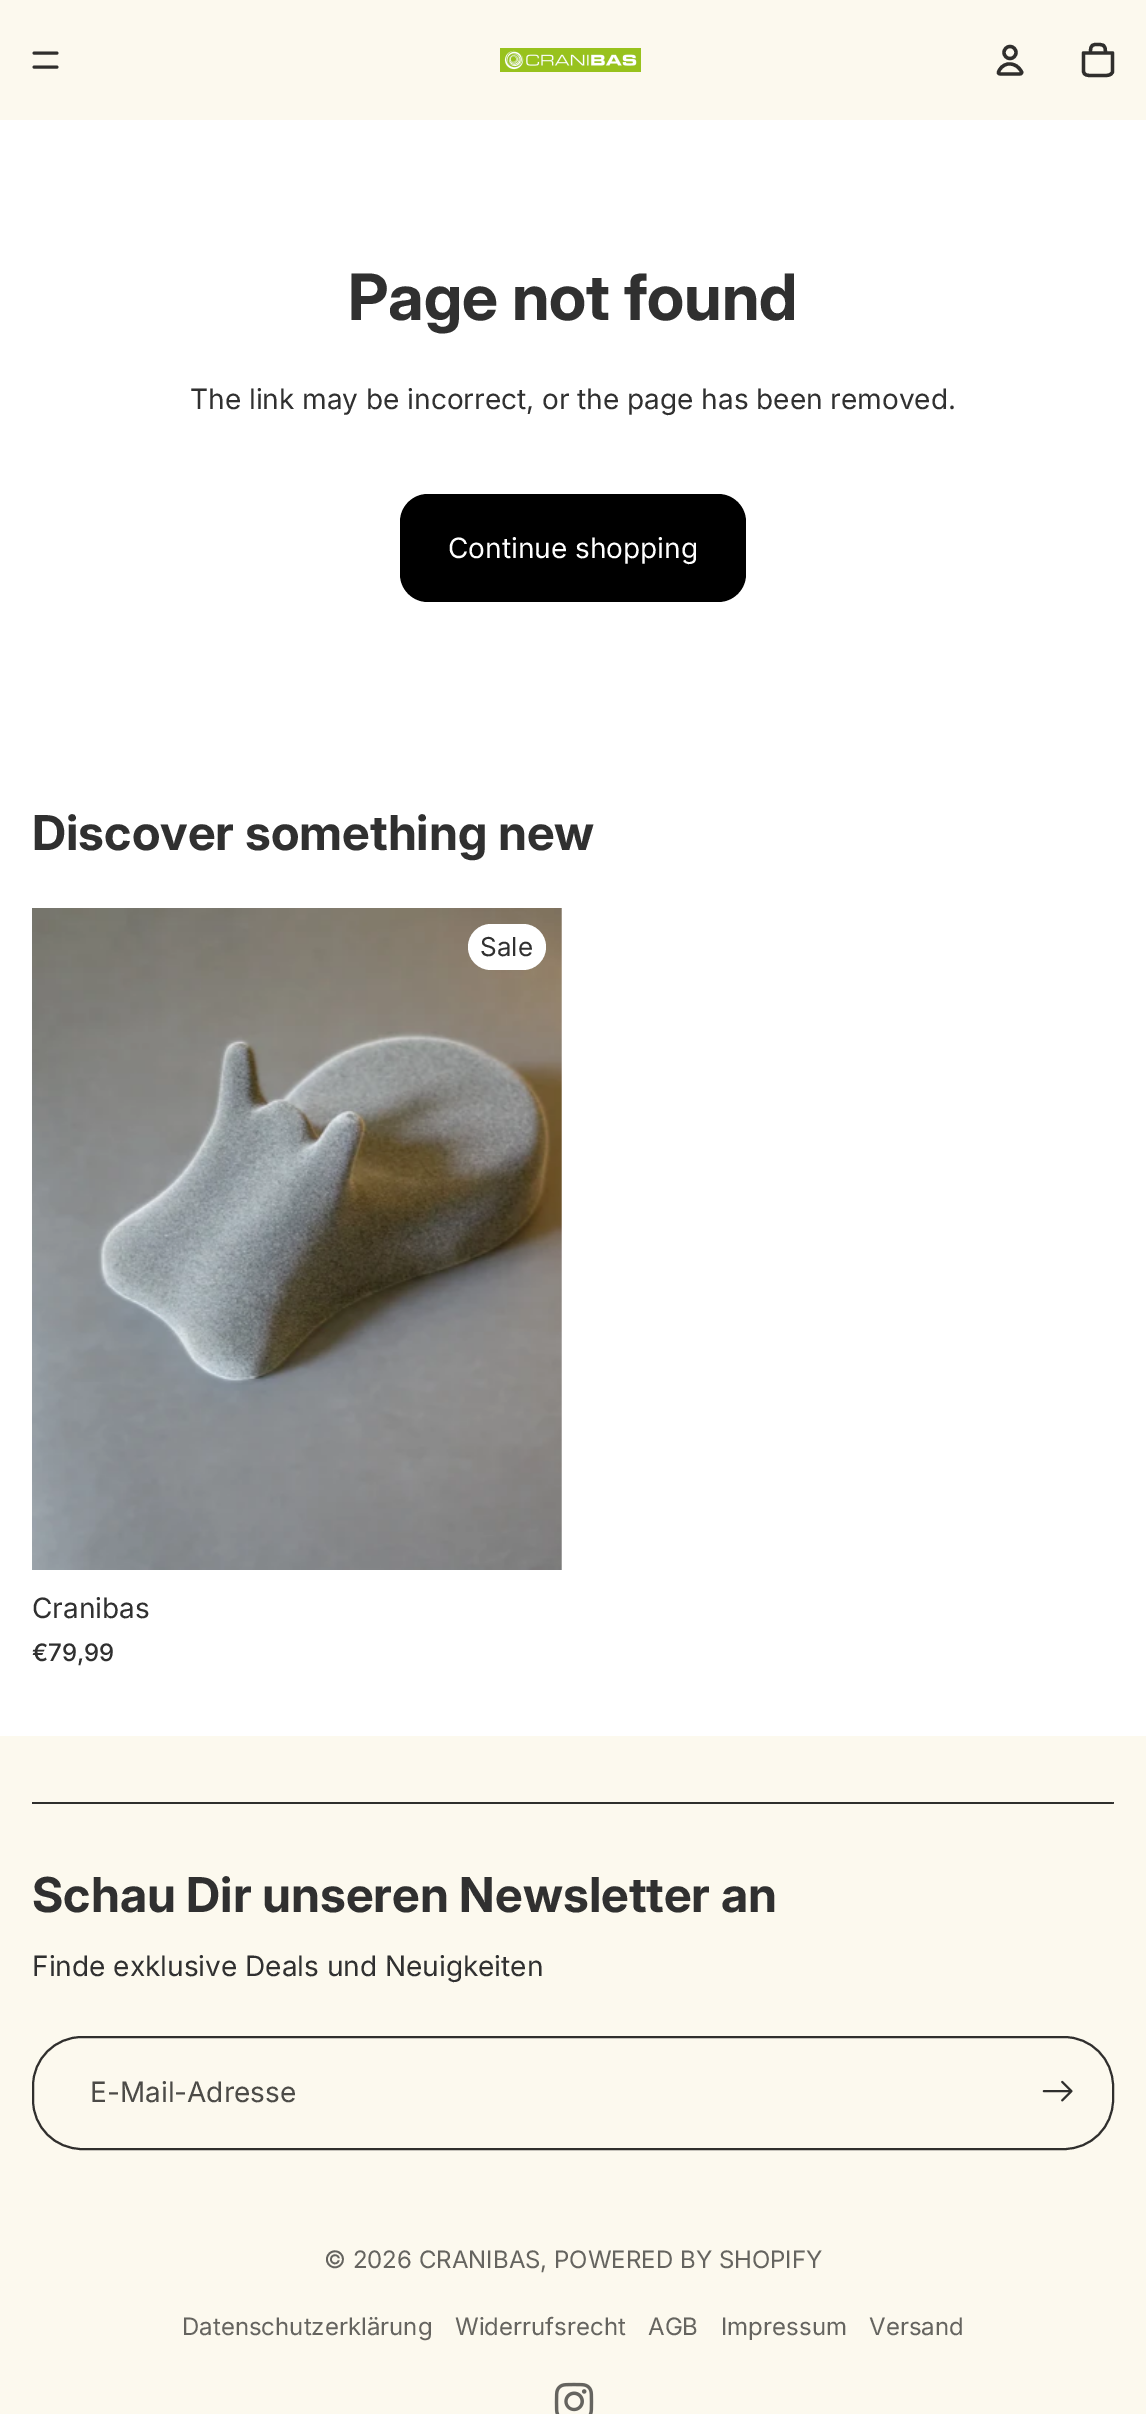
%!PS
<< /PageSize [1146 2414] /PageUsesTransparency true >> setpagedevice
/rgb { 3 { 255 div 3 1 roll } repeat setrgbcolor } def
/font { [ exch dup neg 0 0 3 -1 roll 0 0 ] selectfont } def
/text { moveto show } def
/alpha { dup .setfillconstantalpha .setstrokeconstantalpha } def
/circle { newpath 0 360 arc closepath } def
/roundrect { 5 dict begin { /r /h /w /y /x } { exch def } forall
  x r add y moveto x w add y 2 copy h add r arct x w add y h add x 1 index r arct
  x y h add x y r arct x y 2 copy exch w add exch r arct closepath end } def
/picture { 5 dict begin { /h /w /y /x /name } { exch def } forall
  gsave x y translate w h scale
  w h 8 [w 0 0 h 0 0] name (r) file false 3 colorimage grestore end } def
0 .pushpdf14devicefilter
0 2414 translate 1 -1 scale
4 setmiterlimit
255 255 255 rgb
0 0 1146 2414 rectfill
252 249 238 rgb
0 0 1146 120 rectfill
48 47 45 rgb
2.9 setlinewidth
1 setlinecap
34 53 moveto 23 0 rlineto 34 67 moveto 23 0 rlineto stroke
(img_01.rgb) 500 48 141 24 picture
3.3 setlinewidth
0 setlinecap
1010 52.5 6 circle stroke
1 setlinecap
1 setlinejoin
999.5 70 moveto -2.5 4 -1 4 3.5 4 rcurveto 14 0 rlineto 0.5 0 4 0.5 4.5 -1 rcurveto 0.5 -0.5 0 -1.5 -0.5 -2 rcurveto -4.5 -8.5 -16.5 -10 -21.5 -1 rcurveto stroke
1083.5 53 moveto 29 0 rlineto 0 19 rlineto -1.5 3.5 -5 3.5 -8 3.5 rcurveto -13 0 rlineto -3.5 0 -8 0 -8 -4.5 rcurveto closepath 1095.5 44.5 moveto 8 0 10 -0.5 10 8.5 rcurveto -15 0 rlineto 0 -3.5 -0.5 -8.5 5 -8.5 rcurveto stroke
0 0 0 rgb
400 494 346 108 28 roundrect fill
(img_02.rgb) 32 908 530 662 picture
255 255 255 rgb
468 924 78 46 23 roundrect fill
252 249 238 rgb
0 1736 1146 678 rectfill
48 47 45 rgb
1114 1802 moveto 0 2 rlineto -2 -2 rlineto closepath fill
0.81 alpha
0 0 0 rgb
1114 1804 moveto -1082 0 rlineto 0 -2 rlineto 1080 0 rlineto closepath fill
1 alpha
48 47 45 rgb
2 setlinewidth
0 setlinecap
0 setlinejoin
33 2037 1080 112 49 roundrect stroke
(img_03.rgb) 1042 2080 31 22 picture
(img_04.rgb) 554 2382 40 32 picture
/Inter-Bold 64 font
48 48 48 rgb
(Page not found) 348 320 text
/Inter-Regular 28 font
(The link may be incorrect, or the page has been removed.) 190 409 text
255 255 255 rgb
(Continue shopping) 448 558 text
/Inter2-Bold 48 font
48 48 48 rgb
(Discover something new) 32 850 text
/Inter-Regular 26 font
(Sale) 480 956 text
/Inter-Regular 28 font
(Cranibas) 32 1618 text
/Inter-Medium 24 font
(€79,99) 32 1661 text
/Inter2-Bold 48 font
(Schau Dir unseren Newsletter an) 32 1912 text
/Inter-Regular 28 font
(Finde exklusive Deals und Neuigkeiten) 32 1976 text
76 75 71 rgb
(E-Mail-Adresse) 90 2102 text
/Inter-Regular 24 font
101 100 95 rgb
(© 2026 CRANIBAS, POWERED BY SHOPIFY) 324 2268 text
(Datenschutzerklärung) 182 2335 text
(Widerrufsrecht) 455 2335 text
(AGB) 648 2335 text
(Impressum) 721 2335 text
(Versand) 869 2335 text
.poppdf14devicefilter showpage
